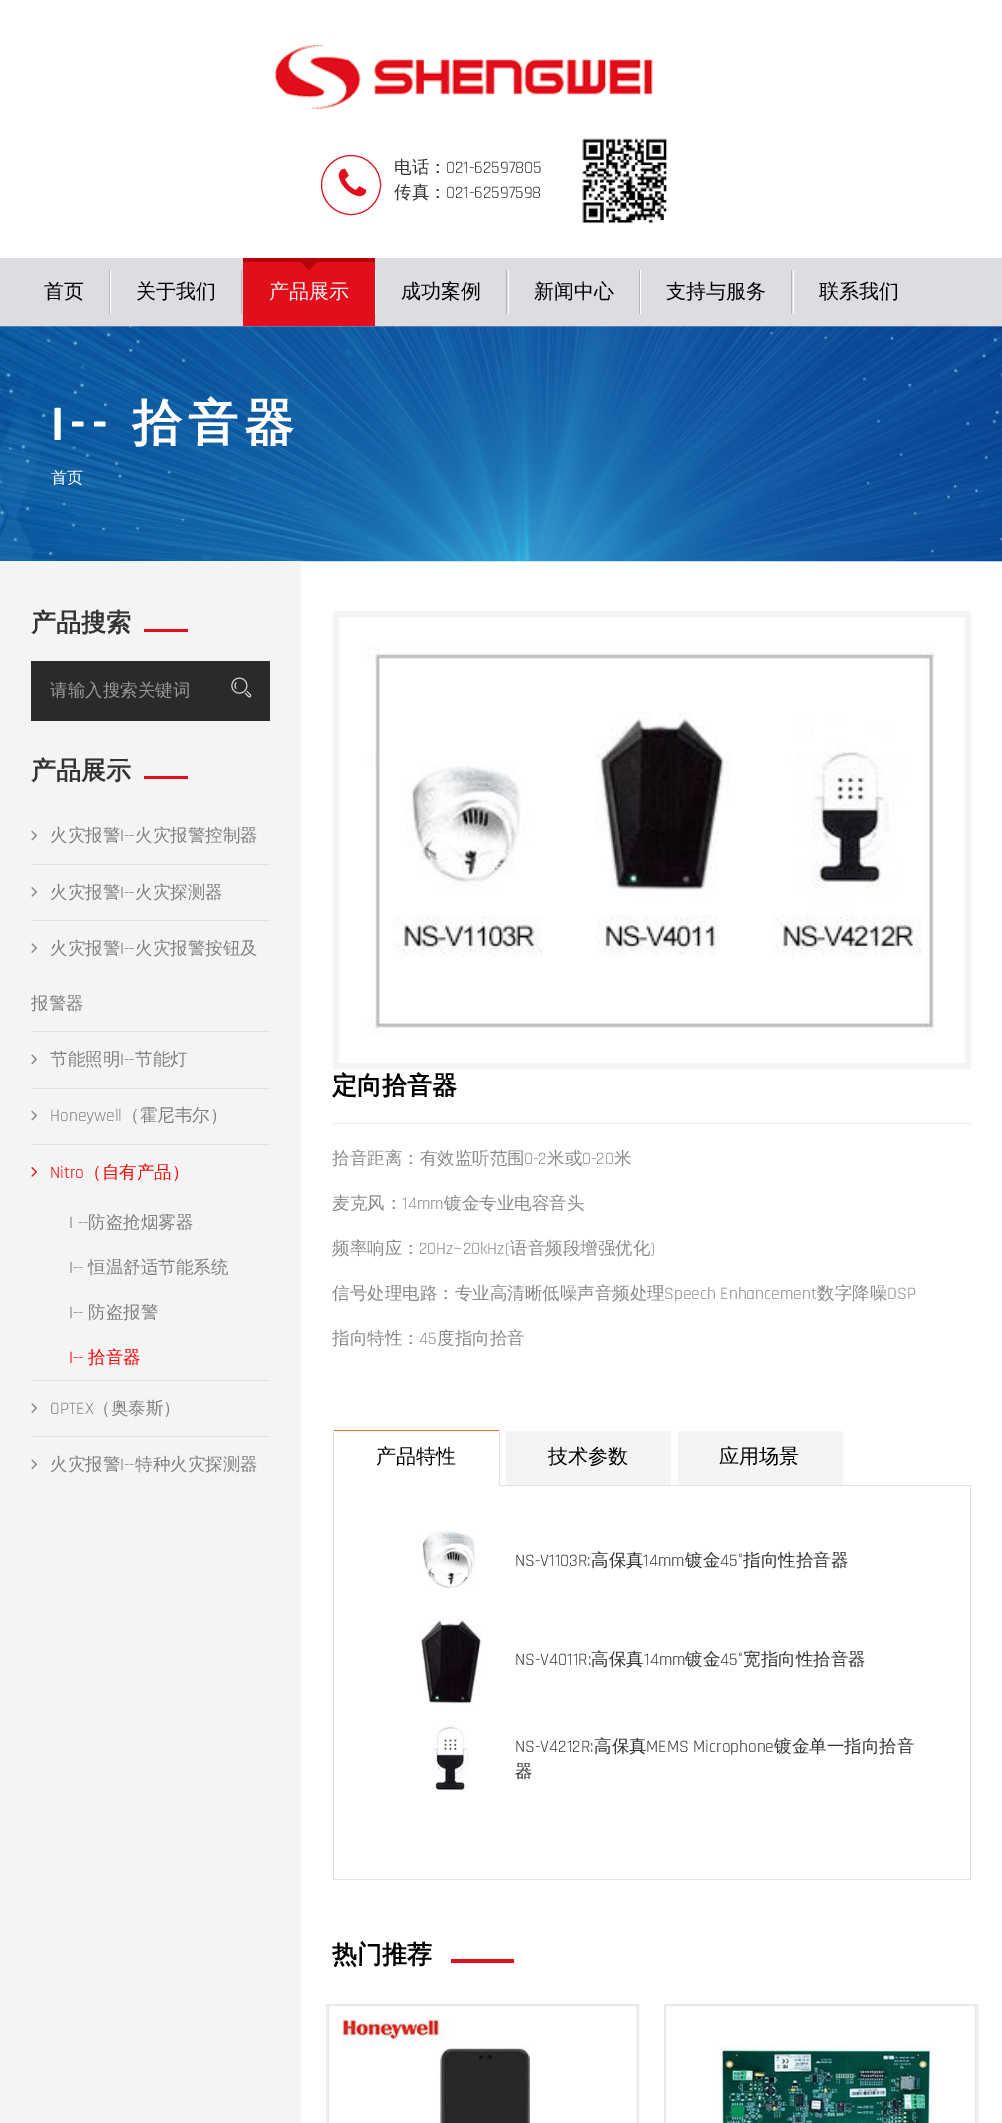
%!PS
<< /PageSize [1002 2123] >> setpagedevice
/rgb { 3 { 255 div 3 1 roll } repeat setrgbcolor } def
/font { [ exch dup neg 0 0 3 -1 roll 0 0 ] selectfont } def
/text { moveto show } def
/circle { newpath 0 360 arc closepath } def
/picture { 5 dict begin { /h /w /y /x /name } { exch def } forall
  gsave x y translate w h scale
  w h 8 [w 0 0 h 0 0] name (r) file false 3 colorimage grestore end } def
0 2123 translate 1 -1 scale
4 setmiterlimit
255 255 255 rgb
0 0 1002 2123 rectfill
(img_01.rgb) 275 44 378 65 picture
226 14 28 rgb
351 185 29.5 circle stroke
(img_02.rgb) 338 168 29 29 picture
(img_03.rgb) 582 138 86 86 picture
222 220 224 rgb
0 258 1002 68 rectfill
183 181 184 rgb
109 270 1 44 rectfill
241 270 1 44 rectfill
255 255 255 rgb
110 270 1 44 rectfill
226 14 28 rgb
243 262 132 64 rectfill
181 0 12 rgb
243 258 132 4 rectfill
300 261 moveto 17.5 0 rlineto -8.5 9 rlineto closepath fill
183 181 184 rgb
506 270 1 44 rectfill
255 255 255 rgb
375 270 1 44 rectfill
183 181 184 rgb
639 270 1 44 rectfill
255 255 255 rgb
508 270 1 44 rectfill
183 181 184 rgb
791 270 1 44 rectfill
255 255 255 rgb
640 270 1 44 rectfill
793 270 1 44 rectfill
(img_04.rgb) 0 326 1002 236 picture
244 244 244 rgb
0 561 301 1562 rectfill
226 14 28 rgb
144 629 44 3 rectfill
42 42 42 rgb
31 661 239 60 rectfill
(img_05.rgb) 231 677 21 21 picture
226 14 28 rgb
144 776 44 3 rectfill
(img_06.rgb) 31 830 6 11 picture
224 224 224 rgb
31 864 239 1 rectfill
(img_07.rgb) 31 887 6 10 picture
31 920 239 1 rectfill
(img_08.rgb) 31 943 6 10 picture
31 1031 239 1 rectfill
(img_09.rgb) 31 1054 6 11 picture
31 1088 239 1 rectfill
(img_06.rgb) 31 1110 6 11 picture
31 1144 239 1 rectfill
(img_10.rgb) 31 1167 6 10 picture
31 1380 239 1 rectfill
(img_08.rgb) 31 1403 6 10 picture
31 1436 239 1 rectfill
(img_09.rgb) 31 1459 6 11 picture
244 244 244 rgb
6 setlinewidth
336 614 632 452 rectstroke
(img_11.rgb) 366 645 569 392 picture
234 234 234 rgb
333 1123 638 1 rectfill
226 226 226 rgb
333 1485 638 1 rectfill
499 1430 1 55 rectfill
333 1430 1 55 rectfill
240 104 62 rgb
334 1430 165 1 rectfill
255 255 255 rgb
334 1485 165 1 rectfill
244 244 244 rgb
506 1431 165 54 rectfill
678 1431 165 54 rectfill
226 226 226 rgb
970 1486 1 394 rectfill
333 1879 638 1 rectfill
333 1486 1 394 rectfill
(img_12.rgb) 422 1531 53 58 picture
(img_13.rgb) 420 1618 62 86 picture
(img_14.rgb) 432 1725 37 67 picture
226 14 28 rgb
451 1959 63 4 rectfill
244 244 244 rgb
327 2005 310 118 rectfill
233 233 233 rgb
1 setlinewidth
326.5 2004.5 312 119 rectstroke
328.5 2005.5 309 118 rectstroke
(img_15.rgb) 329 2006 307 117 picture
244 244 244 rgb
666 2005 311 118 rectfill
233 233 233 rgb
664.5 2004.5 313 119 rectstroke
665.5 2005.5 310 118 rectstroke
(img_16.rgb) 666 2006 309 117 picture
/WenQuanYiZenHei-Medium 17.5 font
51 51 51 rgb
(电话：) 394 173 text
/Rajdhani-Regular 17.5 font
(021-62597805) 446 173 text
/WenQuanYiZenHei-Medium 17.5 font
(传真：) 394 198 text
/Rajdhani-Regular 17.5 font
(021-62597598) 446 198 text
/WenQuanYiZenHei-Medium 20 font
0 0 0 rgb
(首页) 44 298 text
(关于我们) 136 298 text
255 255 255 rgb
(产品展示) 269 298 text
0 0 0 rgb
(成功案例) 401 298 text
(新闻中心) 534 298 text
(支持与服务) 666 298 text
(联系我们) 819 298 text
/Rajdhani-Bold 50 font
255 255 255 rgb
51 440 moveto 6 0 (I--) ashow
/WenQuanYiZenHei-Bold 50 font
132 440 moveto 6 0 (拾音器) ashow
/WenQuanYiZenHei-Medium 16 font
(首页) 51 483 text
/WenQuanYiZenHei-Bold 25 font
51 51 51 rgb
(产品搜索) 31 631 text
/WenQuanYiZenHei-Medium 17.5 font
153 153 153 rgb
(请输入搜索关键词) 50 696 text
/WenQuanYiZenHei-Bold 25 font
51 51 51 rgb
(产品展示) 31 779 text
/WenQuanYiZenHei-Medium 17.5 font
128 128 128 rgb
(火灾报警) 50 841 text
/Rajdhani-Regular 17.5 font
(I--) 120 841 text
/WenQuanYiZenHei-Medium 17.5 font
(火灾报警控制器) 135 841 text
(火灾报警) 50 898 text
/Rajdhani-Regular 17.5 font
(I--) 120 898 text
/WenQuanYiZenHei-Medium 17.5 font
(火灾探测器) 135 898 text
(火灾报警) 50 954 text
/Rajdhani-Regular 17.5 font
(I--) 120 954 text
/WenQuanYiZenHei-Medium 17.5 font
(火灾报警按钮及) 135 954 text
(报警器) 31 1009 text
(节能照明) 50 1065 text
/Rajdhani-Regular 17.5 font
(I--) 120 1065 text
/WenQuanYiZenHei-Medium 17.5 font
(节能灯) 135 1065 text
/Rajdhani-Regular 17.5 font
(Honeywell) 50 1121 text
/WenQuanYiZenHei-Medium 17.5 font
(（霍尼韦尔）) 122 1121 text
/Rajdhani-Regular 17.5 font
255 0 0 rgb
(Nitro) 50 1178 text
/WenQuanYiZenHei-Medium 17.5 font
(（自有产品）) 84 1178 text
/Rajdhani-Regular 17.5 font
128 128 128 rgb
(I --) 69 1228 text
/WenQuanYiZenHei-Medium 17.5 font
(防盗抢烟雾器) 88 1228 text
/Rajdhani-Regular 17.5 font
(I--) 69 1273 text
/WenQuanYiZenHei-Medium 17.5 font
(恒温舒适节能系统) 88 1273 text
/Rajdhani-Regular 17.5 font
(I--) 69 1318 text
/WenQuanYiZenHei-Medium 17.5 font
(防盗报警) 88 1318 text
/Rajdhani-Regular 17.5 font
255 0 0 rgb
(I--) 69 1363 text
/WenQuanYiZenHei-Medium 17.5 font
(拾音器) 88 1363 text
/Rajdhani-Regular 17.5 font
128 128 128 rgb
(OPTEX) 50 1414 text
/WenQuanYiZenHei-Medium 17.5 font
(（奥泰斯）) 93 1414 text
(火灾报警) 50 1470 text
/Rajdhani-Regular 17.5 font
(I--) 120 1470 text
/WenQuanYiZenHei-Medium 17.5 font
(特种火灾探测器) 135 1470 text
/WenQuanYiZenHei-Bold 25 font
0 0 0 rgb
(定向拾音器) 332 1094 text
/WenQuanYiZenHei-Medium 17.5 font
137 137 137 rgb
(拾音距离：有效监听范围) 332 1164 text
/Rajdhani-Regular 17.5 font
(0-2) 524 1164 text
/WenQuanYiZenHei-Medium 17.5 font
(米或) 547 1164 text
/Rajdhani-Regular 17.5 font
(0-20) 582 1164 text
/WenQuanYiZenHei-Medium 17.5 font
(米) 614 1164 text
(麦克风：) 332 1209 text
/Rajdhani-Regular 17.5 font
(14mm) 402 1209 text
/WenQuanYiZenHei-Medium 17.5 font
(镀金专业电容音头) 444 1209 text
(频率响应：) 332 1254 text
/Rajdhani-Regular 17.5 font
(20Hz~20kHz\() 419 1254 text
/WenQuanYiZenHei-Medium 17.5 font
(语音频段增强优化) 510 1254 text
/Rajdhani-Regular 17.5 font
(\)) 650 1254 text
/WenQuanYiZenHei-Medium 17.5 font
(信号处理电路：专业高清晰低噪声音频处理) 332 1299 text
/Rajdhani-Regular 17.5 font
(Speech Enhancement) 664 1299 text
/WenQuanYiZenHei-Medium 17.5 font
(数字降噪) 817 1299 text
/Rajdhani-Regular 17.5 font
(DSP) 887 1299 text
/WenQuanYiZenHei-Medium 17.5 font
(指向特性：) 332 1344 text
/Rajdhani-Regular 17.5 font
(45) 419 1344 text
/WenQuanYiZenHei-Medium 17.5 font
(度指向拾音) 437 1344 text
/WenQuanYiZenHei-Medium 20 font
0 0 0 rgb
(产品特性) 376 1463 text
(技术参数) 548 1463 text
(应用场景) 719 1463 text
/Rajdhani-Regular 17.5 font
51 51 51 rgb
(NS-V1103R:) 515 1566 text
/WenQuanYiZenHei-Medium 17.5 font
(高保真) 591 1566 text
/Rajdhani-Regular 17.5 font
(14mm) 643 1566 text
/WenQuanYiZenHei-Medium 17.5 font
(镀金) 685 1566 text
/Rajdhani-Regular 17.5 font
(45°) 720 1566 text
/WenQuanYiZenHei-Medium 17.5 font
(指向性拾音器) 743 1566 text
/Rajdhani-Regular 17.5 font
(NS-V4011R:) 515 1665 text
/WenQuanYiZenHei-Medium 17.5 font
(高保真) 591 1665 text
/Rajdhani-Regular 17.5 font
(14mm) 644 1665 text
/WenQuanYiZenHei-Medium 17.5 font
(镀金) 685 1665 text
/Rajdhani-Regular 17.5 font
(45°) 720 1665 text
/WenQuanYiZenHei-Medium 17.5 font
(宽指向性拾音器) 743 1665 text
/Rajdhani-Regular 17.5 font
(NS-V4212R:) 515 1752 text
/WenQuanYiZenHei-Medium 17.5 font
(高保真) 594 1752 text
/Rajdhani-Regular 17.5 font
(MEMS Microphone) 646 1752 text
/WenQuanYiZenHei-Medium 17.5 font
(镀金单一指向拾音) 774 1752 text
(器) 515 1777 text
/WenQuanYiZenHei-Bold 25 font
0 0 0 rgb
(热门推荐) 332 1963 text
showpage
